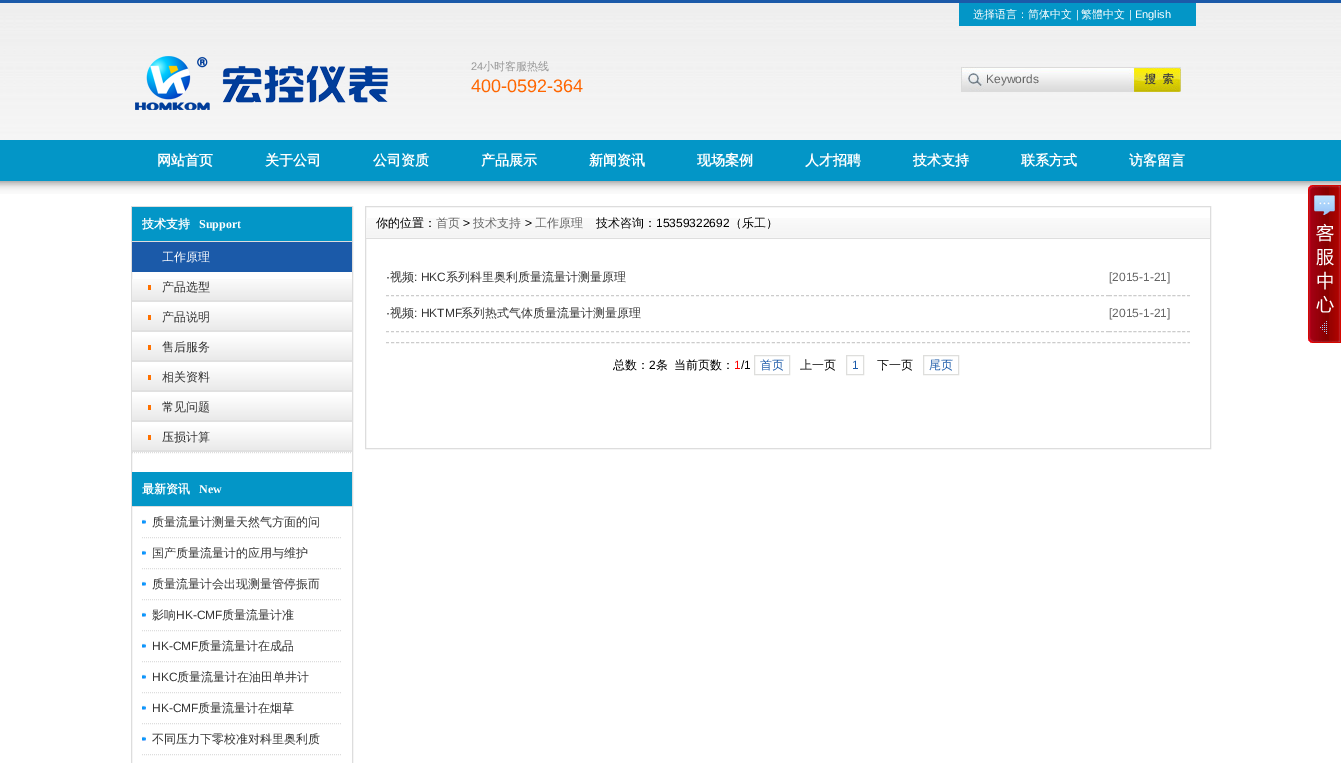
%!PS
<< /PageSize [1341 763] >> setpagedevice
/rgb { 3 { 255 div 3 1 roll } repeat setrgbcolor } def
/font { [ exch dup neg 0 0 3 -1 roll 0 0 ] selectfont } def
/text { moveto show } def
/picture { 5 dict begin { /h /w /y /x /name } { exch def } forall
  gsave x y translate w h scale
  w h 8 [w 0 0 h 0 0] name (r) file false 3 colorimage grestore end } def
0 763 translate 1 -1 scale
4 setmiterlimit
255 255 255 rgb
0 0 1341 763 rectfill
(img_01.rgb) 0 3 1341 191 picture
27 90 169 rgb
0 0 1341 3 rectfill
3 150 199 rgb
959 3 237 23 rectfill
(img_02.rgb) 135 56 253 54 picture
(img_03.rgb) 961 67 220 25 picture
0 140 1341 41 rectfill
221 221 221 rgb
131.5 206.5 221 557 rectstroke
3 150 199 rgb
132 207 220 34 rectfill
221 221 221 rgb
132 241 220 1 rectfill
27 90 169 rgb
132 242 220 30 rectfill
(img_04.rgb) 132 279 220 23 picture
255 113 0 rgb
148 285 3 5 rectfill
(img_05.rgb) 132 302 220 30 picture
148 315 3 5 rectfill
(img_05.rgb) 132 332 220 30 picture
148 345 3 5 rectfill
(img_05.rgb) 132 362 220 30 picture
148 375 3 5 rectfill
(img_05.rgb) 132 392 220 30 picture
148 405 3 5 rectfill
(img_05.rgb) 132 422 220 30 picture
148 435 3 5 rectfill
221 221 221 rgb
[1 1] 0 setdash
132 452.5 moveto 220 0 rlineto stroke
3 150 199 rgb
132 472 220 34 rectfill
221 221 221 rgb
132 506 220 1 rectfill
(img_06.rgb) 142 519 4 5 picture
142 537.5 moveto 200 0 rlineto stroke
(img_06.rgb) 142 550 4 5 picture
142 568.5 moveto 200 0 rlineto stroke
(img_06.rgb) 142 581 4 5 picture
142 599.5 moveto 200 0 rlineto stroke
(img_06.rgb) 142 612 4 5 picture
142 630.5 moveto 200 0 rlineto stroke
(img_06.rgb) 142 643 4 5 picture
142 661.5 moveto 200 0 rlineto stroke
(img_06.rgb) 142 674 4 5 picture
142 692.5 moveto 200 0 rlineto stroke
(img_06.rgb) 142 705 4 5 picture
142 723.5 moveto 200 0 rlineto stroke
(img_06.rgb) 142 736 4 5 picture
142 754.5 moveto 200 0 rlineto stroke
[] 0 setdash
365.5 206.5 845 242 rectstroke
(img_07.rgb) 366 218 844 21 picture
204 204 204 rgb
[3 2] 0 setdash
386 295.5 moveto 723 0 rlineto stroke
[3 1.88] 0 setdash
1109 295.5 moveto 81 0 rlineto stroke
[3 2] 0 setdash
386 331.5 moveto 723 0 rlineto stroke
[3 1.88] 0 setdash
1109 331.5 moveto 81 0 rlineto stroke
[3 2.01] 0 setdash
386 342.5 moveto 804 0 rlineto stroke
222 222 220 rgb
[] 0 setdash
754.5 355.5 35 19 rectstroke
846.5 355.5 17 19 rectstroke
923.5 355.5 35 19 rectstroke
(img_08.rgb) 1308 185 33 158 picture
/WenQuanYiZenHei-Medium 11 font
255 255 255 rgb
(选择语言：简体中文) 973 18 text
/LiberationSans-Regular 11 font
(|) 1076 18 text
/WenQuanYiZenHei-Medium 11 font
(繁體中文) 1081 18 text
/LiberationSans-Regular 11 font
(| English) 1129 18 text
153 153 153 rgb
(24) 471 70 text
/WenQuanYiZenHei-Medium 11 font
(小时客服热线) 483 70 text
/LiberationSans-Regular 18 font
255 102 0 rgb
(400-0592-364) 471 92 text
/LiberationSans-Regular 12 font
102 102 102 rgb
(Keywords) 986 83 text
/WenQuanYiZenHei-Bold 14 font
255 255 255 rgb
(网站首页) 157 165 text
(关于公司) 265 165 text
(公司资质) 373 165 text
(产品展示) 481 165 text
(新闻资讯) 589 165 text
(现场案例) 697 165 text
(人才招聘) 805 165 text
(技术支持) 913 165 text
(联系方式) 1021 165 text
(访客留言) 1129 165 text
/WenQuanYiZenHei-Bold 12 font
(技术支持) 142 228 text
/LiberationSerif-Bold 12 font
(Support) 199 228 text
/WenQuanYiZenHei-Medium 12 font
(工作原理) 162 261 text
51 51 51 rgb
(产品选型) 162 291 text
(产品说明) 162 321 text
(售后服务) 162 351 text
(相关资料) 162 381 text
(常见问题) 162 411 text
(压损计算) 162 441 text
/WenQuanYiZenHei-Bold 12 font
255 255 255 rgb
(最新资讯) 142 493 text
/LiberationSerif-Bold 12 font
(New) 199 493 text
/WenQuanYiZenHei-Medium 12 font
51 51 51 rgb
(质量流量计测量天然气方面的问) 152 526 text
(国产质量流量计的应用与维护) 152 557 text
(质量流量计会出现测量管停振而) 152 588 text
(影响) 152 619 text
/LiberationSans-Regular 12 font
(HK-CMF) 176 619 text
/WenQuanYiZenHei-Medium 12 font
(质量流量计准) 222 619 text
/LiberationSans-Regular 12 font
(HK-CMF) 152 650 text
/WenQuanYiZenHei-Medium 12 font
(质量流量计在成品) 198 650 text
/LiberationSans-Regular 12 font
(HKC) 152 681 text
/WenQuanYiZenHei-Medium 12 font
(质量流量计在油田单井计) 177 681 text
/LiberationSans-Regular 12 font
(HK-CMF) 152 712 text
/WenQuanYiZenHei-Medium 12 font
(质量流量计在烟草) 198 712 text
(不同压力下零校准对科里奥利质) 152 743 text
0 0 0 rgb
(你的位置：) 376 227 text
102 102 102 rgb
(首页) 436 227 text
/LiberationSans-Regular 12 font
0 0 0 rgb
(>) 463 227 text
/WenQuanYiZenHei-Medium 12 font
102 102 102 rgb
(技术支持) 473 227 text
/LiberationSans-Regular 12 font
0 0 0 rgb
(>) 525 227 text
/WenQuanYiZenHei-Medium 12 font
102 102 102 rgb
(工作原理) 535 227 text
0 0 0 rgb
(技术咨询：) 596 227 text
/LiberationSans-Regular 12 font
(15359322692) 656 227 text
/WenQuanYiZenHei-Medium 12 font
(（乐工）) 730 227 text
/LiberationSans-Regular 12 font
(·) 386 281 text
/WenQuanYiZenHei-Medium 12 font
51 51 51 rgb
(视频) 390 281 text
/LiberationSans-Regular 12 font
(: HKC) 414 281 text
/WenQuanYiZenHei-Medium 12 font
(系列科里奥利质量流量计测量原理) 446 281 text
/LiberationSans-Regular 12 font
102 102 102 rgb
([2015-1-21]) 1109 281 text
0 0 0 rgb
(·) 386 317 text
/WenQuanYiZenHei-Medium 12 font
51 51 51 rgb
(视频) 390 317 text
/LiberationSans-Regular 12 font
(: HKTMF) 414 317 text
/WenQuanYiZenHei-Medium 12 font
(系列热式气体质量流量计测量原理) 461 317 text
/LiberationSans-Regular 12 font
102 102 102 rgb
([2015-1-21]) 1109 317 text
/WenQuanYiZenHei-Medium 12 font
0 0 0 rgb
(总数：) 613 369 text
/LiberationSans-Regular 12 font
(2) 649 369 text
/WenQuanYiZenHei-Medium 12 font
(条) 656 369 text
(当前页数：) 674 369 text
/LiberationSans-Regular 12 font
255 0 0 rgb
(1) 734 369 text
0 0 0 rgb
(/1) 741 369 text
/WenQuanYiZenHei-Medium 12 font
27 90 169 rgb
(首页) 760 369 text
0 0 0 rgb
(上一页) 800 369 text
/LiberationSans-Regular 12 font
27 90 169 rgb
(1) 852 369 text
/WenQuanYiZenHei-Medium 12 font
0 0 0 rgb
(下一页) 877 369 text
27 90 169 rgb
(尾页) 929 369 text
showpage
